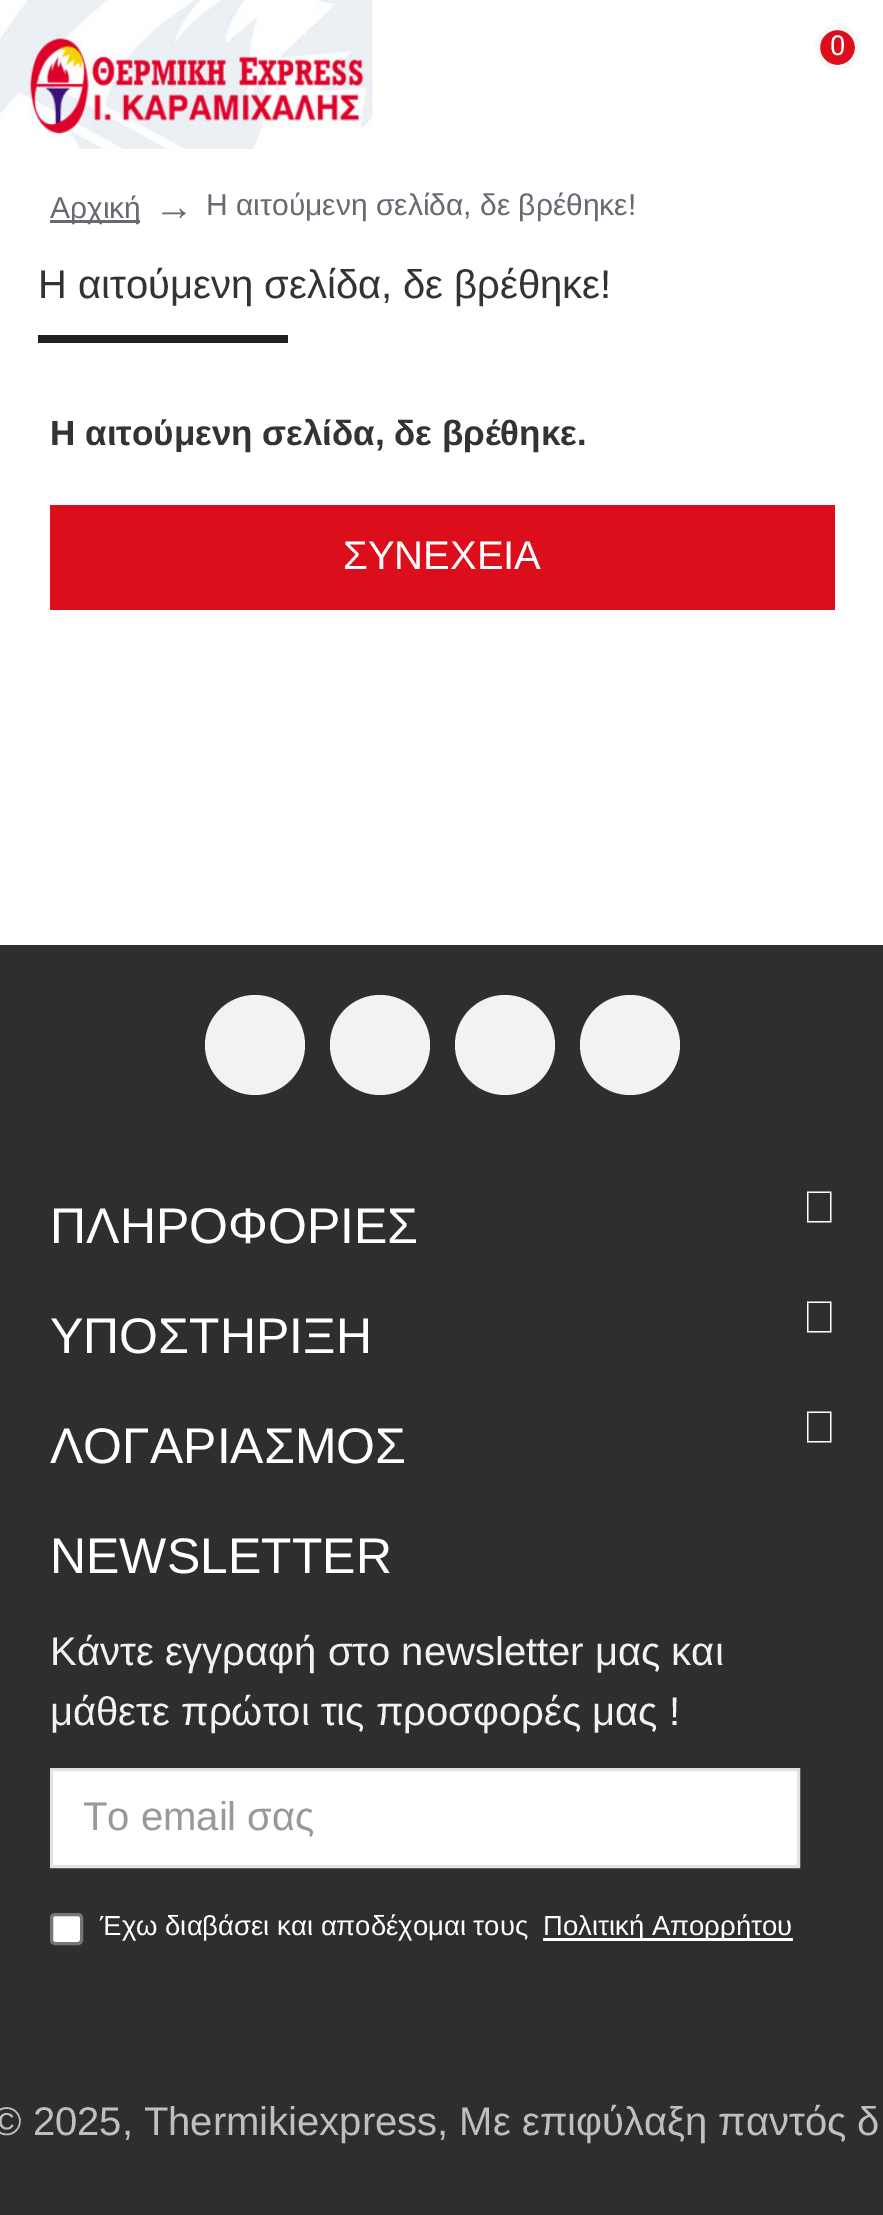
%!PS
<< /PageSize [883 2215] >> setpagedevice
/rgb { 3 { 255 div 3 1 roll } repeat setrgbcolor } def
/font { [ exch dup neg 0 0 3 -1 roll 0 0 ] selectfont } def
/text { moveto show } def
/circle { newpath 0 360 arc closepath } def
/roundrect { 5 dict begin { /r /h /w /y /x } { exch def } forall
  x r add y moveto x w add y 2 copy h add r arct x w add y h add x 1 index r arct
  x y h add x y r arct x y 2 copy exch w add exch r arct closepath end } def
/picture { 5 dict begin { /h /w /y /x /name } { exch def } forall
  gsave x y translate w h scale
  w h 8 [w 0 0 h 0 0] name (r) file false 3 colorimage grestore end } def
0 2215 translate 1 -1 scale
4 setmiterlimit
255 255 255 rgb
0 0 883 2215 rectfill
(img_01.rgb) 0 0 373 149 picture
221 14 28 rgb
837.5 47.5 20 circle gsave fill grestore
248 248 248 rgb
5 setlinewidth
stroke
105 105 115 rgb
50 220 90 3 rectfill
33 33 33 rgb
38 335 250 8 rectfill
221 14 28 rgb
50 505 785 105 rectfill
46 46 46 rgb
0 945 883 1270 rectfill
242 242 242 rgb
255 1045 50 circle fill
380 1045 50 circle fill
505 1045 50 circle fill
630 1045 50 circle fill
255 255 255 rgb
807 1191.5 moveto 24.5 0 rlineto 0 31 rlineto -24.5 0 rlineto closepath 808.5 1193 moveto 0 28 rlineto 21.5 0 rlineto 0 -28 rlineto closepath fill
807 1301.5 moveto 24.5 0 rlineto 0 31 rlineto -24.5 0 rlineto closepath 808.5 1303 moveto 0 28 rlineto 21.5 0 rlineto 0 -28 rlineto closepath fill
807 1411.5 moveto 24.5 0 rlineto 0 31 rlineto -24.5 0 rlineto closepath 808.5 1413 moveto 0 28 rlineto 21.5 0 rlineto 0 -28 rlineto closepath fill
51.5 1769.5 moveto 747 0 rlineto 0 97 rlineto -747 0 rlineto closepath gsave fill grestore
226 226 226 rgb
3 setlinewidth
stroke
255 255 255 rgb
51.5 1914.5 30 29 3.5 roundrect gsave fill grestore
118 118 118 rgb
stroke
255 255 255 rgb
543 1938 250 3 rectfill
/Roboto-Regular 27.5 font
(0) 830 55 text
/LiberationSans-Regular 30 font
105 105 115 rgb
(Αρχική) 50 218 text
/LiberationSans-Regular 40 font
(→) 154 220 text
/LiberationSans-Regular 30 font
(Η αιτούμενη σελίδα, δε βρέθηκε!) 206 215 text
/LiberationSans-Regular 40 font
51 51 51 rgb
(Η αιτούμενη σελίδα, δε βρέθηκε!) 38 298 text
/LiberationSans-Bold 35 font
(Η αιτούμενη σελίδα, δε βρέθηκε.) 50 445 text
/LiberationSans-Regular 40 font
255 255 255 rgb
(ΣΥΝΕΧΕΙΑ) 343 569 text
/LiberationSans-Regular 50 font
(ΠΛΗΡΟΦΟΡΙΕΣ) 50 1243 text
(ΥΠΟΣΤΗΡΙΞΗ) 50 1353 text
(ΛΟΓΑΡΙΑΣΜΟΣ) 50 1463 text
(NEWSLETTER) 50 1573 text
/LiberationSans-Regular 40 font
242 242 242 rgb
(Κάντε εγγραφή στο newsletter μας και) 50 1665 text
(μάθετε πρώτοι τις προσφορές μας !) 50 1725 text
153 153 153 rgb
(To email σας) 83 1830 text
/LiberationSans-Regular 27.5 font
255 255 255 rgb
(Έχω διαβάσει και αποδέχομαι τους) 100 1935 text
(Πολιτική Απορρήτου) 543 1935 text
/LiberationSans-Regular 40 font
191 191 191 rgb
(© 2025, Thermikiexpress, Με επιφύλαξη παντός δ) -8 2135 text
showpage
